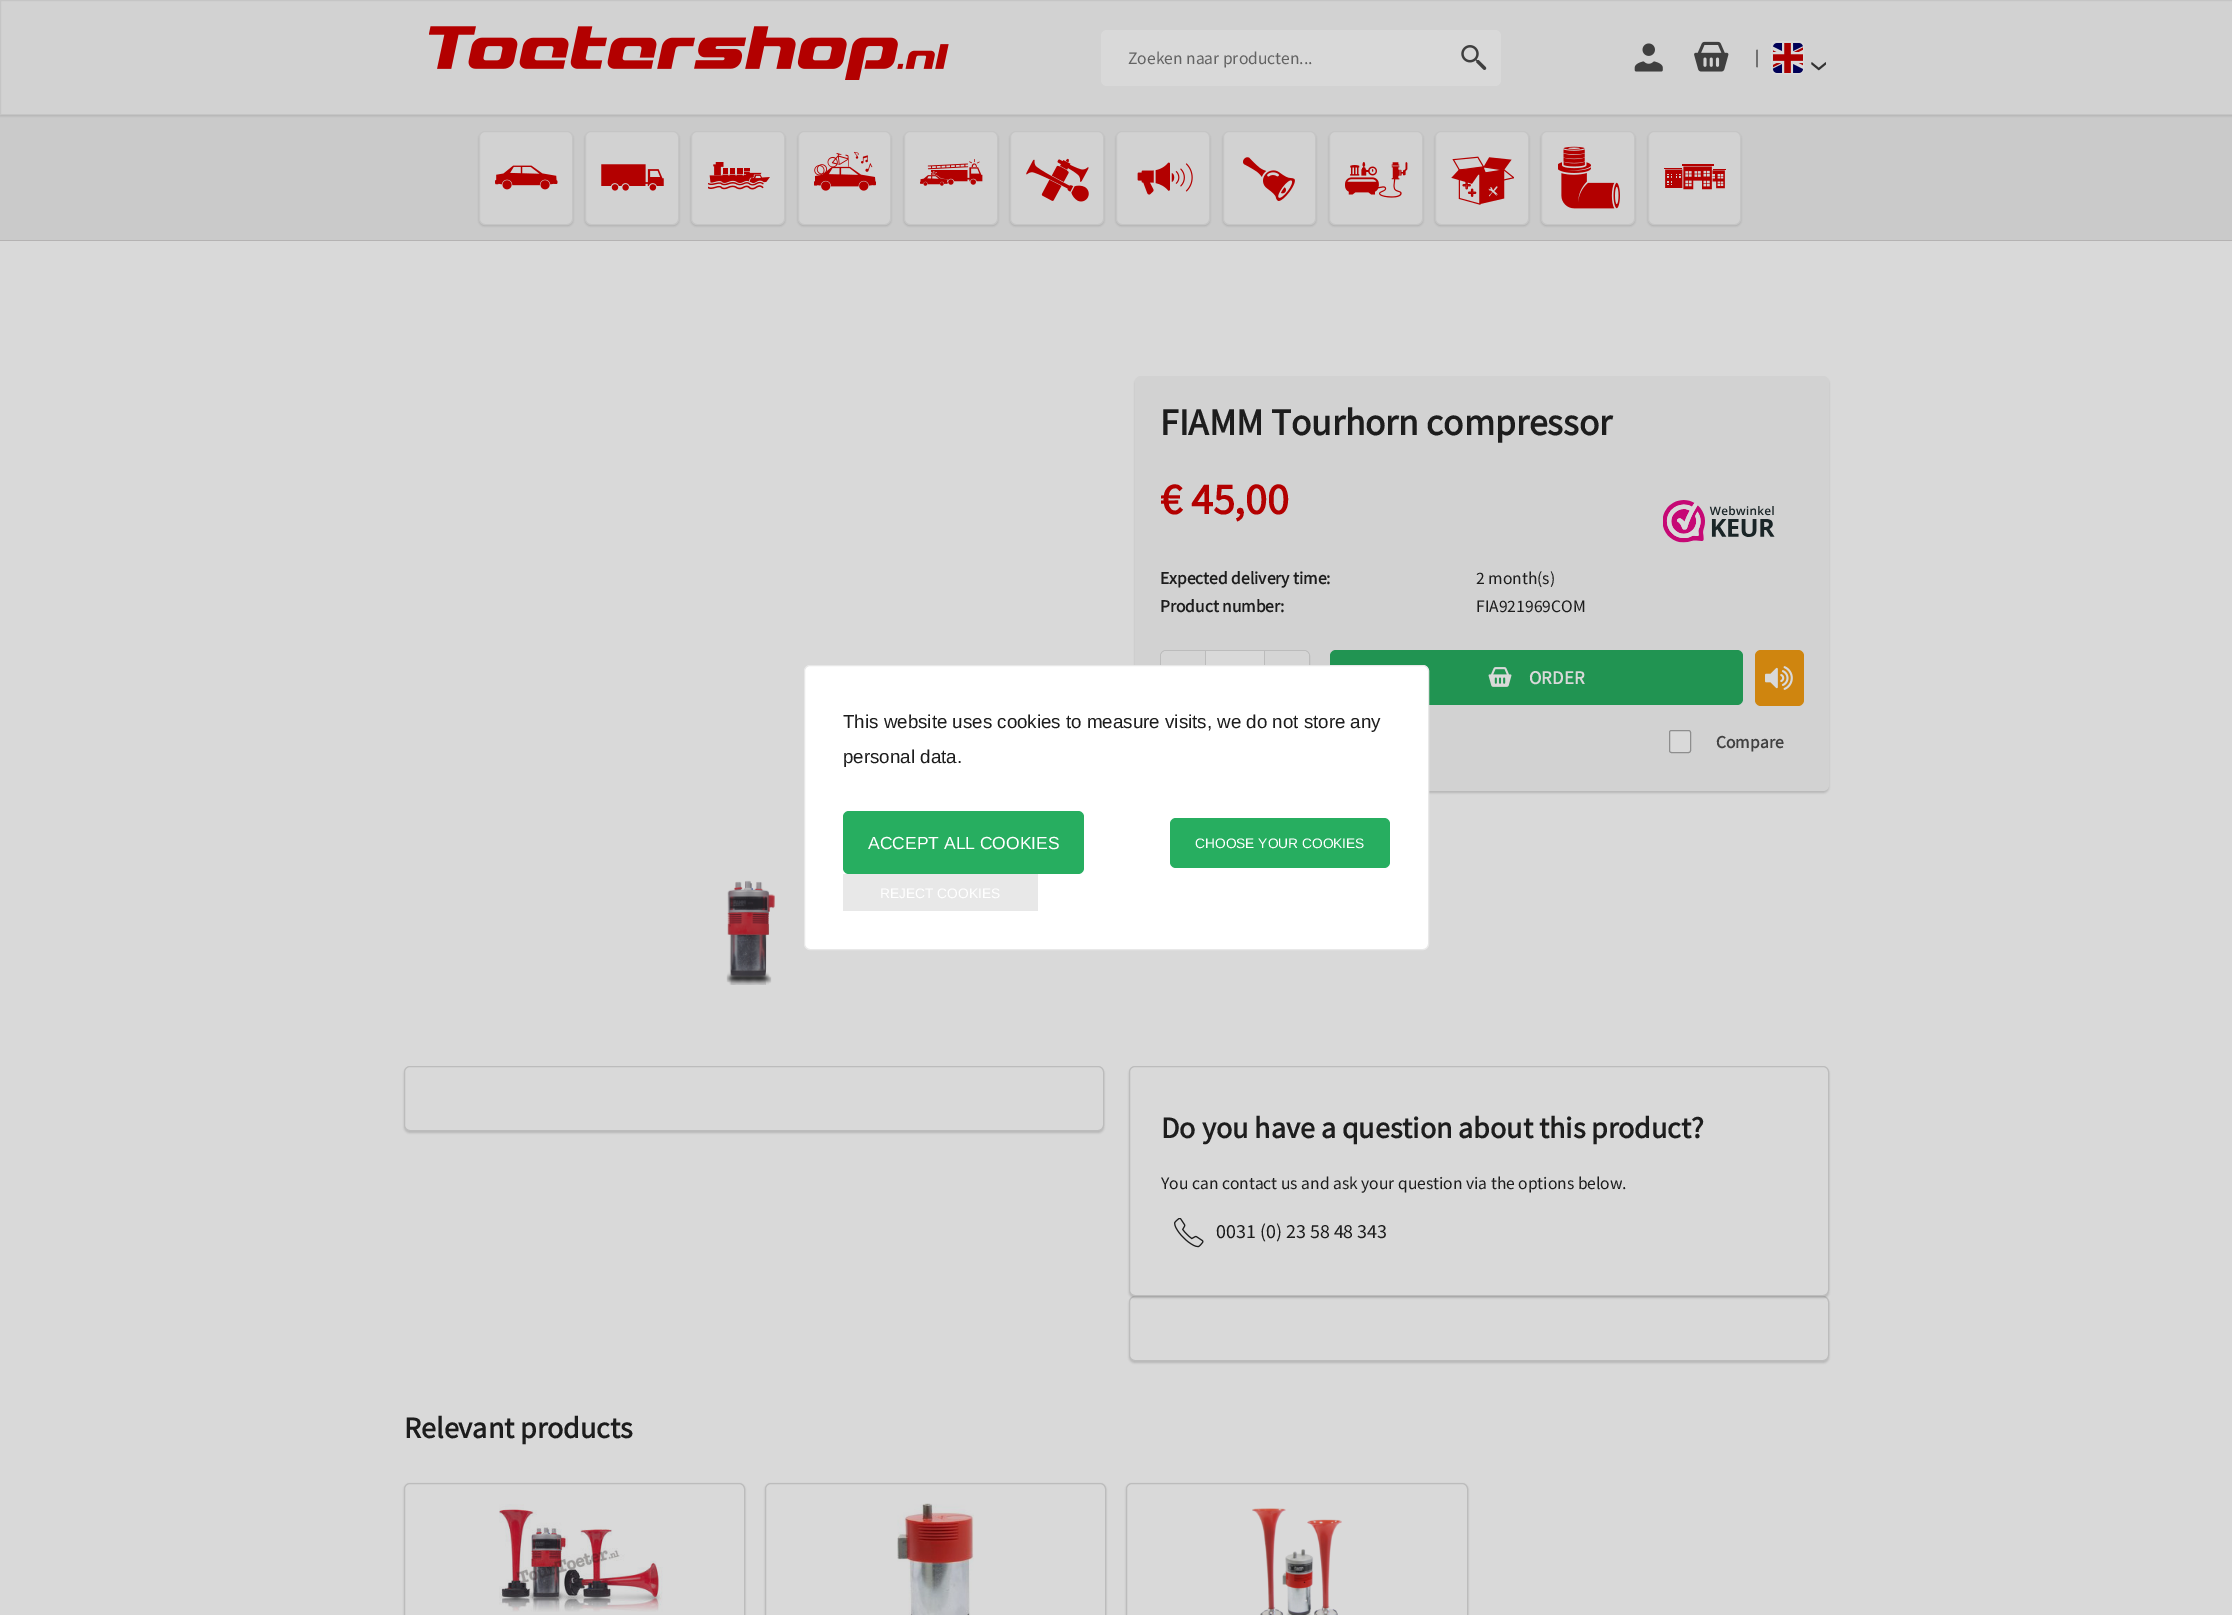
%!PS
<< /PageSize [2232 1615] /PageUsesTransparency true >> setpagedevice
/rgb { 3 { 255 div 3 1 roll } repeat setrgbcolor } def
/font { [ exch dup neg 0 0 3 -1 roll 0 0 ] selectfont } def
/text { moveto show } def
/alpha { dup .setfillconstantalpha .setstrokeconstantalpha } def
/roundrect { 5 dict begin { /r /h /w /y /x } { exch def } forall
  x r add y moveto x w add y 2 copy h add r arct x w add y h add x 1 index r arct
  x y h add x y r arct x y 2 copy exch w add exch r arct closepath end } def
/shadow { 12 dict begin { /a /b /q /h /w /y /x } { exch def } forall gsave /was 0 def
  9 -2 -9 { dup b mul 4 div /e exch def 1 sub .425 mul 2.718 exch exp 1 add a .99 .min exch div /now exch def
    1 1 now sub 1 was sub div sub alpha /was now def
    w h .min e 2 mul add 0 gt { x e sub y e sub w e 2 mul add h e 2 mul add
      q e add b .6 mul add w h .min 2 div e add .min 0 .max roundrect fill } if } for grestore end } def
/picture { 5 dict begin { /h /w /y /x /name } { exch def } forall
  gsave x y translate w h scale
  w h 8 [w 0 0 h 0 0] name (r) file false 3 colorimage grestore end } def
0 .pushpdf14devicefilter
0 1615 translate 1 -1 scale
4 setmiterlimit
217 217 217 rgb
0 0 2232 1615 rectfill
202 202 202 rgb
0 115 2232 125 rectfill
0 0 0 rgb
0 1 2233 115 0 1 0.15 shadow
210 210 210 rgb
0.5 0.5 moveto 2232 0 rlineto 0 114 rlineto -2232 0 rlineto closepath gsave fill grestore
197 197 197 rgb
stroke
(img_01.rgb) 429 26 520 54 picture
217 217 217 rgb
1101 30 400 56 6 roundrect fill
(img_02.rgb) 1461 45 26 25 picture
(img_03.rgb) 1634 43 29 29 picture
(img_04.rgb) 1694 41 35 31 picture
1771.5 41.5 32 32 4.5 roundrect stroke
(img_05.rgb) 1773 43 30 30 picture
(img_06.rgb) 1811 62 15 9 picture
181 179 179 rgb
0 240 2232 1 rectfill
0 0 0 rgb
479 133 94 93 6 1 0.15 shadow
210 210 210 rgb
479.5 131.5 93 93 5.5 roundrect gsave fill grestore
197 197 197 rgb
stroke
(img_07.rgb) 495 165 63 25 picture
0 0 0 rgb
585 133 94 93 6 1 0.15 shadow
210 210 210 rgb
585.5 131.5 93 93 5.5 roundrect gsave fill grestore
197 197 197 rgb
stroke
(img_08.rgb) 601 164 63 27 picture
0 0 0 rgb
691 133 94 93 6 1 0.15 shadow
210 210 210 rgb
691.5 131.5 93 93 5.5 roundrect gsave fill grestore
197 197 197 rgb
stroke
(img_09.rgb) 708 162 62 28 picture
0 0 0 rgb
798 133 93 93 6 1 0.15 shadow
210 210 210 rgb
798.5 131.5 92 93 5.5 roundrect gsave fill grestore
197 197 197 rgb
stroke
(img_10.rgb) 814 151 62 40 picture
0 0 0 rgb
904 133 94 93 6 1 0.15 shadow
210 210 210 rgb
904.5 131.5 93 93 5.5 roundrect gsave fill grestore
197 197 197 rgb
stroke
(img_11.rgb) 920 159 63 27 picture
0 0 0 rgb
1010 133 94 93 6 1 0.15 shadow
210 210 210 rgb
1010.5 131.5 93 93 5.5 roundrect gsave fill grestore
197 197 197 rgb
stroke
(img_12.rgb) 1026 158 63 44 picture
0 0 0 rgb
1116 133 94 93 6 1 0.15 shadow
210 210 210 rgb
1116.5 131.5 93 93 5.5 roundrect gsave fill grestore
197 197 197 rgb
stroke
(img_13.rgb) 1137 162 56 33 picture
0 0 0 rgb
1223 133 93 93 6 1 0.15 shadow
210 210 210 rgb
1223.5 131.5 92 93 5.5 roundrect gsave fill grestore
197 197 197 rgb
stroke
(img_14.rgb) 1243 157 52 44 picture
0 0 0 rgb
1329 133 94 93 6 1 0.15 shadow
210 210 210 rgb
1329.5 131.5 93 93 5.5 roundrect gsave fill grestore
197 197 197 rgb
stroke
(img_15.rgb) 1345 162 63 36 picture
0 0 0 rgb
1435 133 94 93 6 1 0.15 shadow
210 210 210 rgb
1435.5 131.5 93 93 5.5 roundrect gsave fill grestore
197 197 197 rgb
stroke
(img_16.rgb) 1451 156 63 49 picture
0 0 0 rgb
1541 133 94 93 6 1 0.15 shadow
210 210 210 rgb
1541.5 131.5 93 93 5.5 roundrect gsave fill grestore
197 197 197 rgb
stroke
(img_17.rgb) 1558 146 62 63 picture
0 0 0 rgb
1648 133 93 93 6 1 0.15 shadow
210 210 210 rgb
1648.5 131.5 92 93 5.5 roundrect gsave fill grestore
197 197 197 rgb
stroke
(img_18.rgb) 1664 164 62 26 picture
0 0 0 rgb
1135 378 694 415 6 1 0.15 shadow
210 210 210 rgb
1135 376 694 415 6 roundrect fill
(img_19.rgb) 1663 500 112 43 picture
188 188 188 rgb
1160.5 650.5 149 54 5.5 roundrect stroke
217 217 217 rgb
1161 651 148 53 6 roundrect fill
213 213 213 rgb
1167 651 moveto 39 0 rlineto 0 53 rlineto -39 0 rlineto -3.5 0 -6 -2.5 -6 -6 rcurveto 0 -41 rlineto 0 -3.5 2.5 -6 6 -6 rcurveto closepath fill
188 188 188 rgb
1205 651 1 14 rectfill
213 213 213 rgb
1264 651 moveto 39 0 rlineto 3.5 0 6 2.5 6 6 rcurveto 0 41 rlineto 0 3.5 -2.5 6 -6 6 rcurveto -39 0 rlineto closepath fill
188 188 188 rgb
1264 651 1 14 rectfill
33 148 82 rgb
1330 650 413 55 6 roundrect fill
(img_20.rgb) 1488 667 24 20 picture
207 133 15 rgb
1755 650 49 56 6 roundrect fill
(img_21.rgb) 1765 666 28 24 picture
217 217 217 rgb
1669.5 730.5 21 22 2 roundrect gsave fill grestore
142 142 142 rgb
stroke
(img_22.rgb) 726 880 49 105 picture
0 0 0 rgb
404 1068 700 65 6 1 0.15 shadow
217 217 217 rgb
404.5 1066.5 699 64 5.5 roundrect gsave fill grestore
188 188 188 rgb
stroke
0 0 0 rgb
1129 1298 700 65 6 1 0.15 shadow
217 217 217 rgb
1129.5 1296.5 699 64 5.5 roundrect gsave fill grestore
188 188 188 rgb
stroke
0 0 0 rgb
1129 1068 700 230 6 1 0.15 shadow
217 217 217 rgb
1129.5 1066.5 699 229 5.5 roundrect gsave fill grestore
188 188 188 rgb
stroke
(img_23.rgb) 1174 1218 30 30 picture
0 0 0 rgb
404 1484 341 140 6 1 0.15 shadow
217 217 217 rgb
404.5 1483.5 340 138 5.5 roundrect gsave fill grestore
188 188 188 rgb
stroke
(img_24.rgb) 499 1504 164 108 picture
0 0 0 rgb
765 1484 341 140 6 1 0.15 shadow
217 217 217 rgb
765.5 1483.5 340 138 5.5 roundrect gsave fill grestore
188 188 188 rgb
stroke
(img_25.rgb) 897 1503 77 112 picture
0 0 0 rgb
1126 1484 342 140 6 1 0.15 shadow
217 217 217 rgb
1126.5 1483.5 341 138 5.5 roundrect gsave fill grestore
188 188 188 rgb
stroke
(img_26.rgb) 1252 1508 90 107 picture
255 255 255 rgb
804.5 665.5 624 284 5.5 roundrect gsave fill grestore
232 232 232 rgb
stroke
39 174 96 rgb
843 811 241 63 6 roundrect fill
1170 818 220 50 6 roundrect fill
232 232 232 rgb
843 874 195 37 rectfill
/SourceSansPro-Regular 17.5 font
99 99 99 rgb
(Zoeken naar producten...) 1128 64 text
29 29 29 rgb
(|) 1755 63 text
/SourceSansPro-Bold 37.5 font
(FIAMM Tourhorn compressor) 1160 435 text
/SourceSansPro-Bold 44 font
179 0 0 rgb
(€ 45,00) 1160 514 text
/SourceSansPro-Bold 17.5 font
29 29 29 rgb
(Expected delivery time:) 1160 584 text
/SourceSansPro-Regular 17.5 font
(2 month\(s\)) 1476 584 text
/SourceSansPro-Bold 17.5 font
(Product number:) 1160 612 text
/SourceSansPro-Regular 17.5 font
(FIA921969COM) 1476 612 text
/SourceSansPro-Bold 18.75 font
217 217 217 rgb
(ORDER) 1529 684 text
/SourceSansPro-Bold 17.5 font
65 65 65 rgb
(Compare) 1716 748 text
/SourceSansPro-Bold 30 font
29 29 29 rgb
(Do you have a question about this product?) 1161 1138 text
/SourceSansPro-Regular 17.5 font
(You can contact us and ask your question via the options below.) 1161 1189 text
/SourceSansPro-Regular 20 font
(0031 \(0\) 23 58 48 343) 1216 1238 text
/SourceSansPro-Bold 30 font
(Relevant products) 404 1438 text
/LiberationSans-Regular 18.75 font
(This website uses cookies to measure visits, we do not store any) 843 728 text
(personal data.) 843 763 text
/LiberationSans-Regular 17.5 font
255 255 255 rgb
(ACCEPT ALL COOKIES) 868 849 text
/LiberationSans-Regular 13.75 font
(CHOOSE YOUR COOKIES) 1195 848 text
(REJECT COOKIES) 880 898 text
.poppdf14devicefilter showpage
